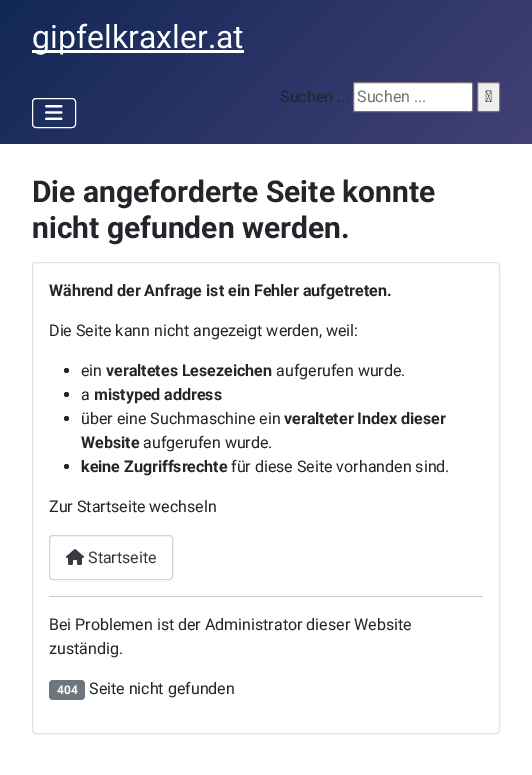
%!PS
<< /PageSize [532 775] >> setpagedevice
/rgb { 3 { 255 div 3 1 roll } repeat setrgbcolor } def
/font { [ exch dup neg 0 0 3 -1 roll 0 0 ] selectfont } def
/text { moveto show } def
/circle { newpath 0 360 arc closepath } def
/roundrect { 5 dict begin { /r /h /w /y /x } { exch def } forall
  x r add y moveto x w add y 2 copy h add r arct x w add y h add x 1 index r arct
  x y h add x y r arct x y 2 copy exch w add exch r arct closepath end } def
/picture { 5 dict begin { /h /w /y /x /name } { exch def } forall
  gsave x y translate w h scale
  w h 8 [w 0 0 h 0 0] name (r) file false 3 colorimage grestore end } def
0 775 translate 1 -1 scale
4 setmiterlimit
255 255 255 rgb
0 0 532 775 rectfill
gsave 0 0 moveto 532 0 rlineto 0 144 rlineto -532 0 rlineto closepath clip newpath
<< /ShadingType 2 /ColorSpace /DeviceRGB /Coords [97 -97 435 241] /Extend [true true] /Function << /FunctionType 2 /Domain [0 1] /C0 [0.067 0.157 0.333] /C1 [0.259 0.251 0.467] /N 1 >> >> shfill grestore
32 50 212 3 rectfill
353.5 82.5 119 29 1.5 roundrect gsave fill grestore
118 118 118 rgb
stroke
239 239 239 rgb
477.5 82.5 22 29 1.5 roundrect gsave fill grestore
118 118 118 rgb
stroke
(img_01.rgb) 485 90 7 12 picture
255 255 255 rgb
32.5 98.5 43 29 3.5 roundrect stroke
(img_02.rgb) 45 105 18 15 picture
223 227 231 rgb
32.5 262.5 467 471 3.5 roundrect stroke
34 38 42 rgb
66.5 370.5 2.5 circle fill
66.5 394.5 2.5 circle fill
66.5 418.5 2.5 circle fill
66.5 466.5 2.5 circle fill
206 212 218 rgb
49.5 535.5 123 44 3.5 roundrect stroke
(img_03.rgb) 66 549 18 16 picture
200 201 202 rgb
49 596 434 1 rectfill
109 117 126 rgb
49 680 36 20 4 roundrect fill
/Roboto-Regular 32 font
255 255 255 rgb
(gipfelkraxler.at) 32 48 text
/Roboto-Regular 16 font
34 38 42 rgb
(Suchen ...) 280 102 text
117 117 117 rgb
(Suchen ...) 357 102 text
/Roboto-Bold 30 font
34 38 42 rgb
(Die angeforderte Seite konnte) 32 202 text
(nicht gefunden werden.) 32 238 text
/Roboto-Bold 16 font
(Während der Anfrage ist ein Fehler aufgetreten.) 49 296 text
/Roboto-Regular 16 font
(Die Seite kann nicht angezeigt werden, weil:) 49 336 text
(ein) 81 376 text
/Roboto-Bold 16 font
(veraltetes Lesezeichen) 106 376 text
/Roboto-Regular 16 font
(aufgerufen wurde.) 276 376 text
(a) 81 400 text
/Roboto-Bold 16 font
(mistyped address) 94 400 text
/Roboto-Regular 16 font
(über eine Suchmaschine ein) 81 424 text
/Roboto-Bold 16 font
(veralteter Index dieser) 284 424 text
(Website) 81 448 text
/Roboto-Regular 16 font
(aufgerufen wurde.) 143 448 text
/Roboto-Bold 16 font
(keine Zugriffsrechte) 81 472 text
/Roboto-Regular 16 font
(für diese Seite vorhanden sind.) 231 472 text
(Zur Startseite wechseln) 49 512 text
53 59 65 rgb
(Startseite) 88 563 text
34 38 42 rgb
(Bei Problemen ist der Administrator dieser Website) 49 630 text
(zuständig.) 49 654 text
/Roboto-Bold 12 font
255 255 255 rgb
(404) 57 694 text
/Roboto-Regular 16 font
34 38 42 rgb
(Seite nicht gefunden) 89 694 text
showpage
